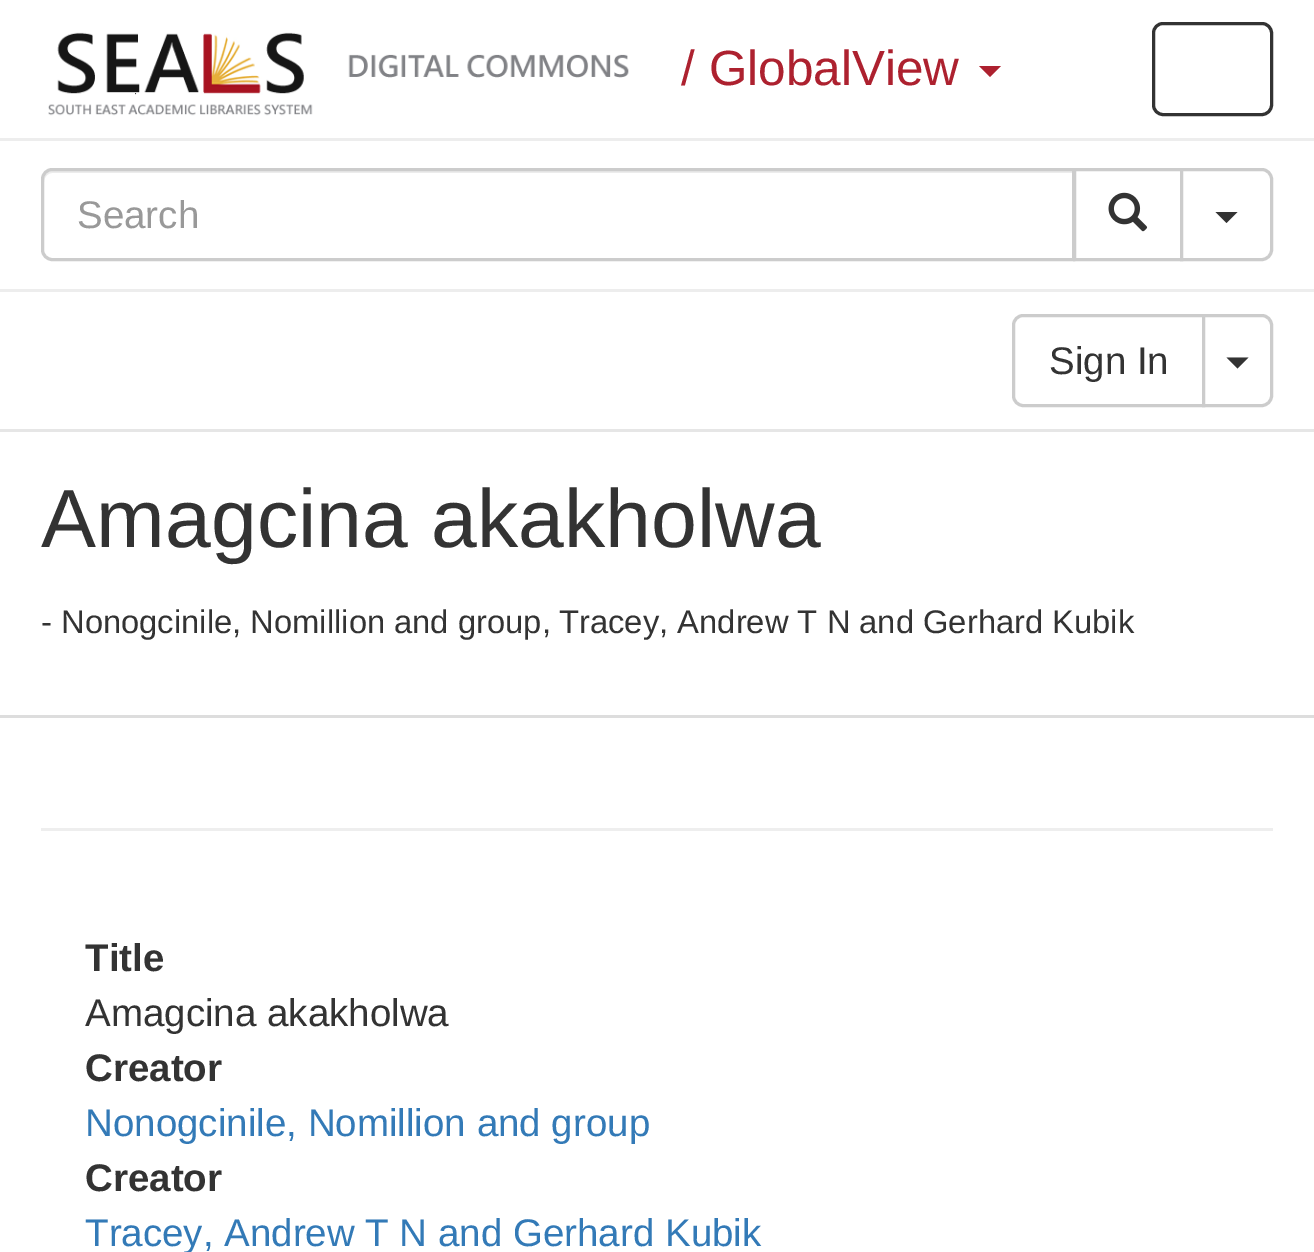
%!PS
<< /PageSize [1314 1252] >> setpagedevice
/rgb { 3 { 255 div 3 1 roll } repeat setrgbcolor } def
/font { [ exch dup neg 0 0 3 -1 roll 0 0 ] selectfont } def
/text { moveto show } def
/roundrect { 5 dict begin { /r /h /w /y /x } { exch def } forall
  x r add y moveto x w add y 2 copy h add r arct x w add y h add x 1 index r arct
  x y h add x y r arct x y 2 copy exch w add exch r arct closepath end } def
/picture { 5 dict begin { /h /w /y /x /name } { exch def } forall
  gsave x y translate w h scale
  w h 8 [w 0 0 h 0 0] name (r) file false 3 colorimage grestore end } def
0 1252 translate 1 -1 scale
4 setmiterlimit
255 255 255 rgb
0 0 1314 1252 rectfill
230 230 230 rgb
0 429 1314 3 rectfill
(img_01.rgb) 48 32 581 84 picture
173 33 47 rgb
979 66 moveto 22 0 rlineto -11 11 rlineto closepath fill
51 51 51 rgb
3 setlinewidth
1153.5 23.5 118 91 9.5 roundrect stroke
237 237 237 rgb
0 138 1314 3 rectfill
0 289 1314 3 rectfill
236 236 236 rgb
52 173 moveto 1020 0 rlineto 0 86 rlineto 1 0 rlineto 0 -88 rlineto -1021 0 rlineto -4 0 -8 4 -8 8 rcurveto 0 3 rlineto 0 -5 4 -9 8 -9 rcurveto closepath fill
204 204 204 rgb
52 169.5 moveto 1021.5 0 rlineto 0 90 rlineto -1021.5 0 rlineto -5 0 -9.5 -4.5 -9.5 -9.5 rcurveto 0 -71 rlineto 0 -5 4.5 -9.5 9.5 -9.5 rcurveto closepath stroke
1074.5 169.5 107 90 rectstroke
(img_02.rgb) 1108 192 40 40 picture
255 255 255 rgb
1181.5 169.5 moveto 80.5 0 rlineto 5 0 9.5 4.5 9.5 9.5 rcurveto 0 71 rlineto 0 5 -4.5 9.5 -9.5 9.5 rcurveto -80.5 0 rlineto closepath gsave fill grestore
204 204 204 rgb
stroke
51 51 51 rgb
1215.5 212 moveto 22 0 rlineto -11 11 rlineto closepath fill
204 204 204 rgb
1023 315.5 moveto 180.5 0 rlineto 0 90 rlineto -180.5 0 rlineto -5 0 -9.5 -4.5 -9.5 -9.5 rcurveto 0 -71 rlineto 0 -5 4.5 -9.5 9.5 -9.5 rcurveto closepath stroke
255 255 255 rgb
1203.5 315.5 moveto 58.5 0 rlineto 5 0 9.5 4.5 9.5 9.5 rcurveto 0 71 rlineto 0 5 -4.5 9.5 -9.5 9.5 rcurveto -58.5 0 rlineto closepath gsave fill grestore
204 204 204 rgb
stroke
51 51 51 rgb
1226.5 357.5 moveto 22 0 rlineto -11 11 rlineto closepath fill
221 221 221 rgb
0 715 1314 3 rectfill
238 238 238 rgb
41 828 1232 3 rectfill
/LiberationSans-Regular 49.5 font
173 33 47 rgb
(/ GlobalView) 681 85 text
/LiberationSans-Regular 38.5 font
153 153 153 rgb
(Search) 77 228 text
51 51 51 rgb
(Sign In) 1049 374 text
/LiberationSans-Regular 82.5 font
(Amagcina akakholwa) 41 547 text
/LiberationSans-Regular 32.75 font
(- Nonogcinile, Nomillion and group,) 41 633 text
(Tracey, Andrew T N and Gerhard Kubik) 559 633 text
/LiberationSans-Bold 38.5 font
(Title) 85 971 text
/LiberationSans-Regular 38.5 font
(Amagcina akakholwa) 85 1026 text
/LiberationSans-Bold 38.5 font
(Creator) 85 1081 text
/LiberationSans-Regular 38.5 font
51 122 183 rgb
(Nonogcinile, Nomillion and group) 85 1136 text
/LiberationSans-Bold 38.5 font
51 51 51 rgb
(Creator) 85 1191 text
/LiberationSans-Regular 38.5 font
51 122 183 rgb
(Tracey, Andrew T N and Gerhard Kubik) 85 1246 text
showpage
